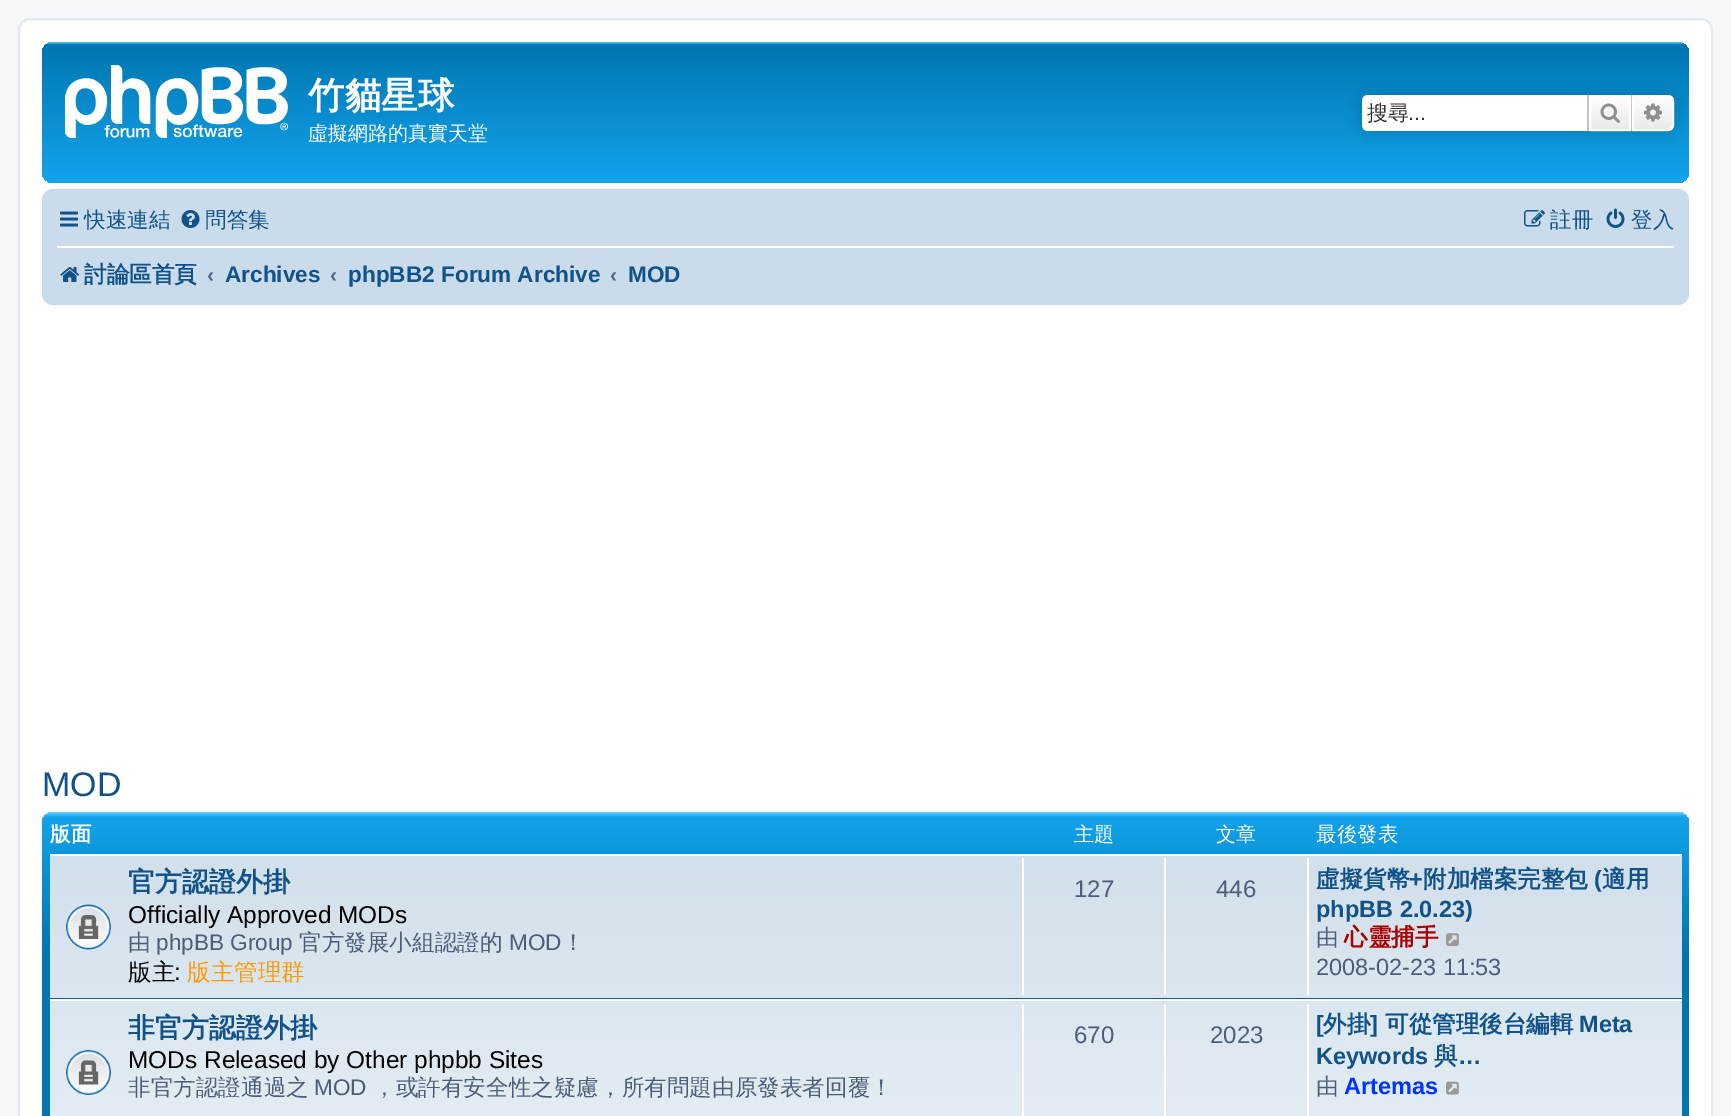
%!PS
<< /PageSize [1731 1116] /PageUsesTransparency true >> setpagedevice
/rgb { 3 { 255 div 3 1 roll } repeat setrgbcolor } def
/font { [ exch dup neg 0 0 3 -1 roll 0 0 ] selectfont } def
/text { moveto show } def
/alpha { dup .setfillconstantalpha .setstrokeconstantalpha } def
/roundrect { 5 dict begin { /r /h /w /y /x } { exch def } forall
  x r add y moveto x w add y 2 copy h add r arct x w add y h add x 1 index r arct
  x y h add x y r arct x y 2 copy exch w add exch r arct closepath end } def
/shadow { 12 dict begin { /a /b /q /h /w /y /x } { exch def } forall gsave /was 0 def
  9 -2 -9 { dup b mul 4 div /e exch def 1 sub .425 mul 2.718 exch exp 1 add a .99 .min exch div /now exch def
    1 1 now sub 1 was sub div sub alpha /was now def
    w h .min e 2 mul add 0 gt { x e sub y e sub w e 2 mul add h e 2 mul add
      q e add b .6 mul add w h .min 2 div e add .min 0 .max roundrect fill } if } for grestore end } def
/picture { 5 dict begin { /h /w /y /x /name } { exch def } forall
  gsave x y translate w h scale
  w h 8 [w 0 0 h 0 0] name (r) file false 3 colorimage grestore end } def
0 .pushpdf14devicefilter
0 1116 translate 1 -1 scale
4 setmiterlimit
245 247 250 rgb
0 0 1731 1116 rectfill
255 255 255 rgb
19 19 1693 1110 11 roundrect gsave fill grestore
230 233 237 rgb
2 setlinewidth
stroke
gsave 42 42 1647 141 11 roundrect clip newpath
<< /ShadingType 2 /ColorSpace /DeviceRGB /Coords [866 42 866 183] /Extend [true true] /Function << /FunctionType 3 /Domain [0 1] /Functions [<< /FunctionType 2 /Domain [0 1] /C0 [0.416 0.808 1] /C1 [0 0.463 0.694] /N 1 >> << /FunctionType 2 /Domain [0 1] /C0 [0 0.463 0.694] /C1 [0.071 0.639 0.922] /N 1 >> << /FunctionType 2 /Domain [0 1] /C0 [0.071 0.639 0.922] /C1 [0.071 0.639 0.922] /N 1 >>] /Bounds [0.02 0.98] /Encode [0 1 0 1 0 1] >> >> shfill grestore
(img_01.rgb) 65 65 223 73 picture
0 117 176 rgb
1362 95 312 36 6 7.5 1 shadow
255 255 255 rgb
1368 95 moveto 219 0 rlineto 0 36 rlineto -219 0 rlineto -3.5 0 -6 -2.5 -6 -6 rcurveto 0 -24 rlineto 0 -3.5 2.5 -6 6 -6 rcurveto closepath fill
gsave 1591 97 moveto 38 0 rlineto 0 32 rlineto -38 0 rlineto closepath clip newpath
<< /ShadingType 2 /ColorSpace /DeviceRGB /Coords [1610 95 1610 131] /Extend [true true] /Function << /FunctionType 2 /Domain [0 1] /C0 [1 1 1] /C1 [0.914 0.914 0.914] /N 1 >> >> shfill grestore
1590 96 40 34 rectstroke
199 195 191 rgb
1631 95 1 36 rectfill
1587 95 2 36 rectfill
(img_02.rgb) 1600 103 20 20 picture
gsave 1633 96 moveto 35 0 rlineto 3 0 5 2 5 5 rcurveto 0 24 rlineto 0 3 -2 5 -5 5 rcurveto -35 0 rlineto closepath clip newpath
<< /ShadingType 2 /ColorSpace /DeviceRGB /Coords [1653 95 1653 131] /Extend [true true] /Function << /FunctionType 2 /Domain [0 1] /C0 [1 1 1] /C1 [0.914 0.914 0.914] /N 1 >> >> shfill grestore
255 255 255 rgb
1633 96 moveto 35 0 rlineto 3 0 5 2 5 5 rcurveto 0 24 rlineto 0 3 -2 5 -5 5 rcurveto -35 0 rlineto closepath stroke
(img_03.rgb) 1644 103 18 19 picture
202 220 235 rgb
42 189 1647 116 11 roundrect fill
(img_04.rgb) 60 211 18 16 picture
(img_05.rgb) 181 210 19 18 picture
(img_06.rgb) 1524 210 21 17 picture
(img_07.rgb) 1606 208 19 20 picture
255 255 255 rgb
57 246 1617 2 rectfill
(img_08.rgb) 60 267 20 15 picture
gsave 42 812 1647 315 11 roundrect clip newpath
<< /ShadingType 2 /ColorSpace /DeviceRGB /Coords [866 812 866 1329] /Extend [true true] /Function << /FunctionType 3 /Domain [0 1] /Functions [<< /FunctionType 2 /Domain [0 1] /C0 [0.416 0.808 1] /C1 [0.071 0.639 0.922] /N 1 >> << /FunctionType 2 /Domain [0 1] /C0 [0.071 0.639 0.922] /C1 [0 0.463 0.694] /N 1 >> << /FunctionType 2 /Domain [0 1] /C0 [0 0.463 0.694] /C1 [0 0.463 0.694] /N 1 >>] /Bounds [0.01 0.27] /Encode [0 1 0 1 0 1] >> >> shfill grestore
gsave 50 856 moveto 1632 0 rlineto 0 260 rlineto -1632 0 rlineto closepath clip newpath
<< /ShadingType 2 /ColorSpace /DeviceRGB /Coords [866 854 866 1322] /Extend [true true] /Function << /FunctionType 2 /Domain [0 1] /C0 [0.824 0.878 0.922] /C1 [0.933 0.961 0.976] /N 1 >> >> shfill grestore
50 854 1632 2 rectfill
0 96 143 rgb
50 998 1632 1 rectfill
(img_09.rgb) 66 904 45 46 picture
255 255 255 rgb
1022 858 2 137 rectfill
1164 858 2 137 rectfill
1307 858 2 137 rectfill
(img_10.rgb) 1446 933 13 14 picture
50 999 1632 2 rectfill
(img_11.rgb) 66 1050 45 45 picture
1022 1004 2 112 rectfill
1164 1004 2 112 rectfill
1307 1004 2 112 rectfill
(img_12.rgb) 1446 1081 13 14 picture
/WenQuanYiZenHei-Bold 36.5 font
(竹貓星球) 308 108 text
/WenQuanYiZenHei-Medium 20 font
(虛擬網路的真實天堂) 308 140 text
/WenQuanYiZenHei-Medium 21 font
51 51 51 rgb
(搜尋) 1367 120 text
/LiberationSans-Regular 21 font
(...) 1408 120 text
/WenQuanYiZenHei-Medium 21.5 font
16 82 137 rgb
(快速連結) 84 227 text
(問答集) 205 227 text
(註冊) 1550 227 text
(登入) 1631 227 text
/WenQuanYiZenHei-Bold 22.6 font
(討論區首頁) 84 282 text
/LiberationSans-Bold 21 font
83 100 130 rgb
(‹) 207 282 text
/LiberationSans-Bold 22.6 font
16 82 137 rgb
(Archives) 225 282 text
/LiberationSans-Bold 21 font
83 100 130 rgb
(‹) 330 282 text
/LiberationSans-Bold 22.6 font
16 82 137 rgb
(phpBB2 Forum Archive) 348 282 text
/LiberationSans-Bold 21 font
83 100 130 rgb
(‹) 610 282 text
/LiberationSans-Bold 22.6 font
16 82 137 rgb
(MOD) 628 282 text
/LiberationSans-Regular 34 font
(MOD) 42 796 text
/WenQuanYiZenHei-Bold 20.5 font
255 255 255 rgb
(版面) 50 841 text
/WenQuanYiZenHei-Medium 20 font
(主題) 1074 841 text
(文章) 1216 841 text
/WenQuanYiZenHei-Medium 20.5 font
(最後發表) 1316 841 text
/WenQuanYiZenHei-Bold 27 font
16 82 137 rgb
(官方認證外掛) 128 891 text
/LiberationSans-Regular 24.4 font
0 0 0 rgb
(Officially Approved MODs) 128 923 text
/WenQuanYiZenHei-Medium 22.6 font
76 93 119 rgb
(由) 128 950 text
/LiberationSans-Regular 22.6 font
(phpBB Group) 156 950 text
/WenQuanYiZenHei-Medium 22.6 font
(官方發展小組認證的) 299 950 text
/LiberationSans-Regular 22.6 font
(MOD) 509 950 text
/WenQuanYiZenHei-Medium 22.6 font
(！) 562 950 text
/WenQuanYiZenHei-Medium 23.5 font
0 0 0 rgb
(版主) 128 980 text
/LiberationSans-Regular 23.5 font
(:) 174 980 text
/WenQuanYiZenHei-Medium 23.5 font
255 153 0 rgb
(版主管理群) 187 980 text
/LiberationSans-Regular 24 font
76 93 119 rgb
(127) 1074 897 text
(446) 1216 897 text
/WenQuanYiZenHei-Bold 23.5 font
16 82 137 rgb
(虛擬貨幣) 1316 887 text
/LiberationSans-Bold 23.5 font
(+) 1409 887 text
/WenQuanYiZenHei-Bold 23.5 font
(附加檔案完整包) 1423 887 text
/LiberationSans-Bold 23.5 font
(\() 1594 887 text
/WenQuanYiZenHei-Bold 23.5 font
(適用) 1602 887 text
/LiberationSans-Bold 23.5 font
(phpBB 2.0.23\)) 1316 917 text
/WenQuanYiZenHei-Medium 22.6 font
76 93 119 rgb
(由) 1316 945 text
/WenQuanYiZenHei-Bold 23.5 font
170 0 0 rgb
(心靈捕手) 1344 945 text
/LiberationSans-Regular 23.5 font
76 93 119 rgb
(2008-02-23 11:53) 1316 975 text
/WenQuanYiZenHei-Bold 27 font
16 82 137 rgb
(非官方認證外掛) 128 1037 text
/LiberationSans-Regular 24.4 font
0 0 0 rgb
(MODs Released by Other phpbb Sites) 128 1068 text
/WenQuanYiZenHei-Medium 22.6 font
76 93 119 rgb
(非官方認證通過之) 128 1095 text
/LiberationSans-Regular 22.6 font
(MOD) 314 1095 text
/WenQuanYiZenHei-Medium 22.6 font
(，或許有安全性之疑慮，所有問題由原發表者回覆！) 373 1095 text
/LiberationSans-Regular 24 font
(670) 1074 1043 text
(2023) 1210 1043 text
/LiberationSans-Bold 23.5 font
16 82 137 rgb
([) 1316 1032 text
/WenQuanYiZenHei-Bold 23.5 font
(外掛) 1323 1032 text
/LiberationSans-Bold 23.5 font
(]) 1370 1032 text
/WenQuanYiZenHei-Bold 23.5 font
(可從管理後台編輯) 1385 1032 text
/LiberationSans-Bold 23.5 font
(Meta) 1579 1032 text
(Keywords) 1316 1064 text
/WenQuanYiZenHei-Bold 23.5 font
(與) 1434 1064 text
/LiberationSans-Bold 23.5 font
(…) 1458 1064 text
/WenQuanYiZenHei-Medium 22.6 font
76 93 119 rgb
(由) 1316 1094 text
/LiberationSans-Bold 23.5 font
0 51 255 rgb
(Artemas) 1344 1094 text
.poppdf14devicefilter showpage
